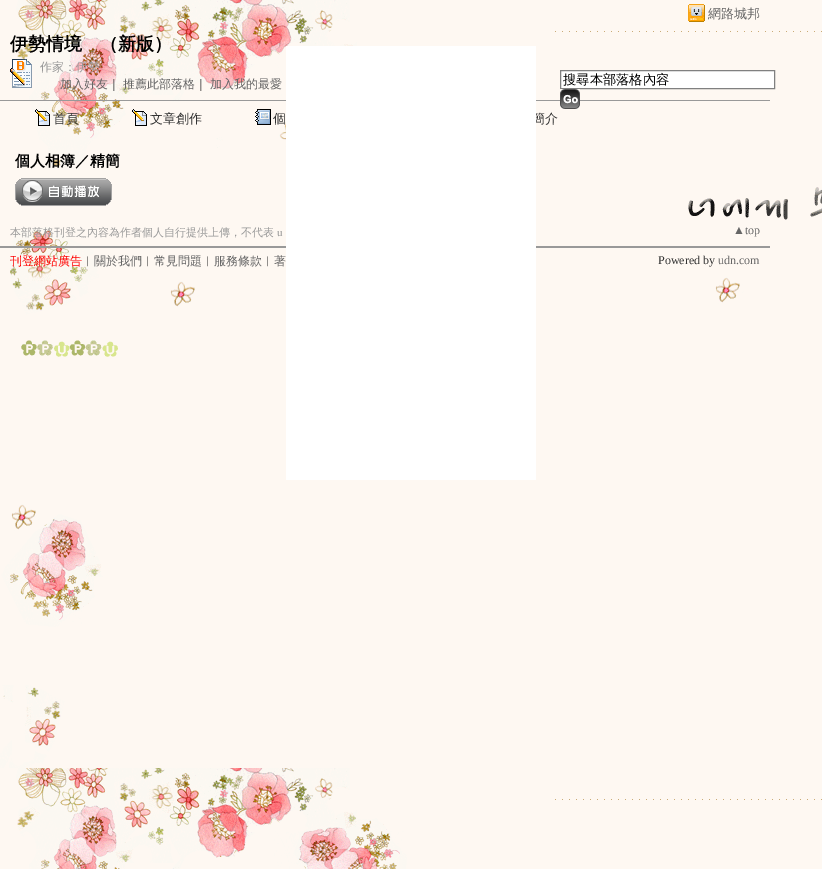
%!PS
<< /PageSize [822 869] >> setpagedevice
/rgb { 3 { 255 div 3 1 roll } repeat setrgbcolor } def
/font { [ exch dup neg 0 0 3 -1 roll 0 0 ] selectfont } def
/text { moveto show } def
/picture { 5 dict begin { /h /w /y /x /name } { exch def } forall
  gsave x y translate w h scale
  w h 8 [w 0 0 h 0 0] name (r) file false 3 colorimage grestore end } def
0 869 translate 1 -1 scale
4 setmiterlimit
255 255 255 rgb
0 0 822 869 rectfill
(img_01.rgb) 0 0 822 869 picture
(img_02.rgb) 688 4 17 18 picture
(img_03.rgb) 10 59 22 29 picture
560.5 70.5 moveto 214 0 rlineto 0 18 rlineto -214 0 rlineto closepath gsave fill grestore
128 128 128 rgb
stroke
153 153 153 rgb
0 100 770 1 rectfill
(img_04.rgb) 560 89 20 20 picture
(img_05.rgb) 35 109 15 17 picture
(img_06.rgb) 132 109 15 17 picture
(img_07.rgb) 255 109 16 16 picture
(img_08.rgb) 15 178 97 28 picture
0 246 770 2 rectfill
/WenQuanYiZenHei-Medium 13 font
102 102 102 rgb
(網路城邦) 708 18 text
/WenQuanYiZenHei-Bold 18 font
0 0 0 rgb
(伊勢情境) 10 50 text
(（新版）) 100 50 text
/WenQuanYiZenHei-Medium 12 font
153 153 153 rgb
(作家：伊勢) 40 71 text
102 102 102 rgb
(加入好友) 60 88 text
51 51 51 rgb
(｜) 108 88 text
102 102 102 rgb
(推薦此部落格) 123 88 text
51 51 51 rgb
(｜) 195 88 text
102 102 102 rgb
(加入我的最愛) 210 88 text
/WenQuanYiZenHei-Medium 13.25 font
0 0 0 rgb
(搜尋本部落格內容) 563 84 text
/WenQuanYiZenHei-Medium 13 font
51 51 51 rgb
(首頁) 53 123 text
(文章創作) 150 123 text
(個) 273 123 text
(簡介) 532 123 text
/WenQuanYiZenHei-Bold 15 font
0 0 0 rgb
(個人相簿／精簡) 15 166 text
/WenQuanYiZenHei-Medium 11 font
153 153 153 rgb
(本部落格刊登之內容為作者個人自行提供上傳，不代表) 10 236 text
/LiberationSerif-Regular 11 font
(u) 277 236 text
/LiberationSerif-Regular 12 font
102 102 102 rgb
(▲top) 733 234 text
/WenQuanYiZenHei-Medium 12 font
255 0 0 rgb
(刊登網站廣告) 10 265 text
51 51 51 rgb
(︱) 82 265 text
102 102 102 rgb
(關於我們) 94 265 text
51 51 51 rgb
(︱) 142 265 text
102 102 102 rgb
(常見問題) 154 265 text
51 51 51 rgb
(︱) 202 265 text
102 102 102 rgb
(服務條款) 214 265 text
51 51 51 rgb
(︱) 262 265 text
102 102 102 rgb
(著) 274 265 text
/LiberationSerif-Regular 12 font
51 51 51 rgb
(Powered by) 658 264 text
102 102 102 rgb
(udn.com) 718 264 text
255 255 255 rgb
286 46 250 434 rectfill
showpage
